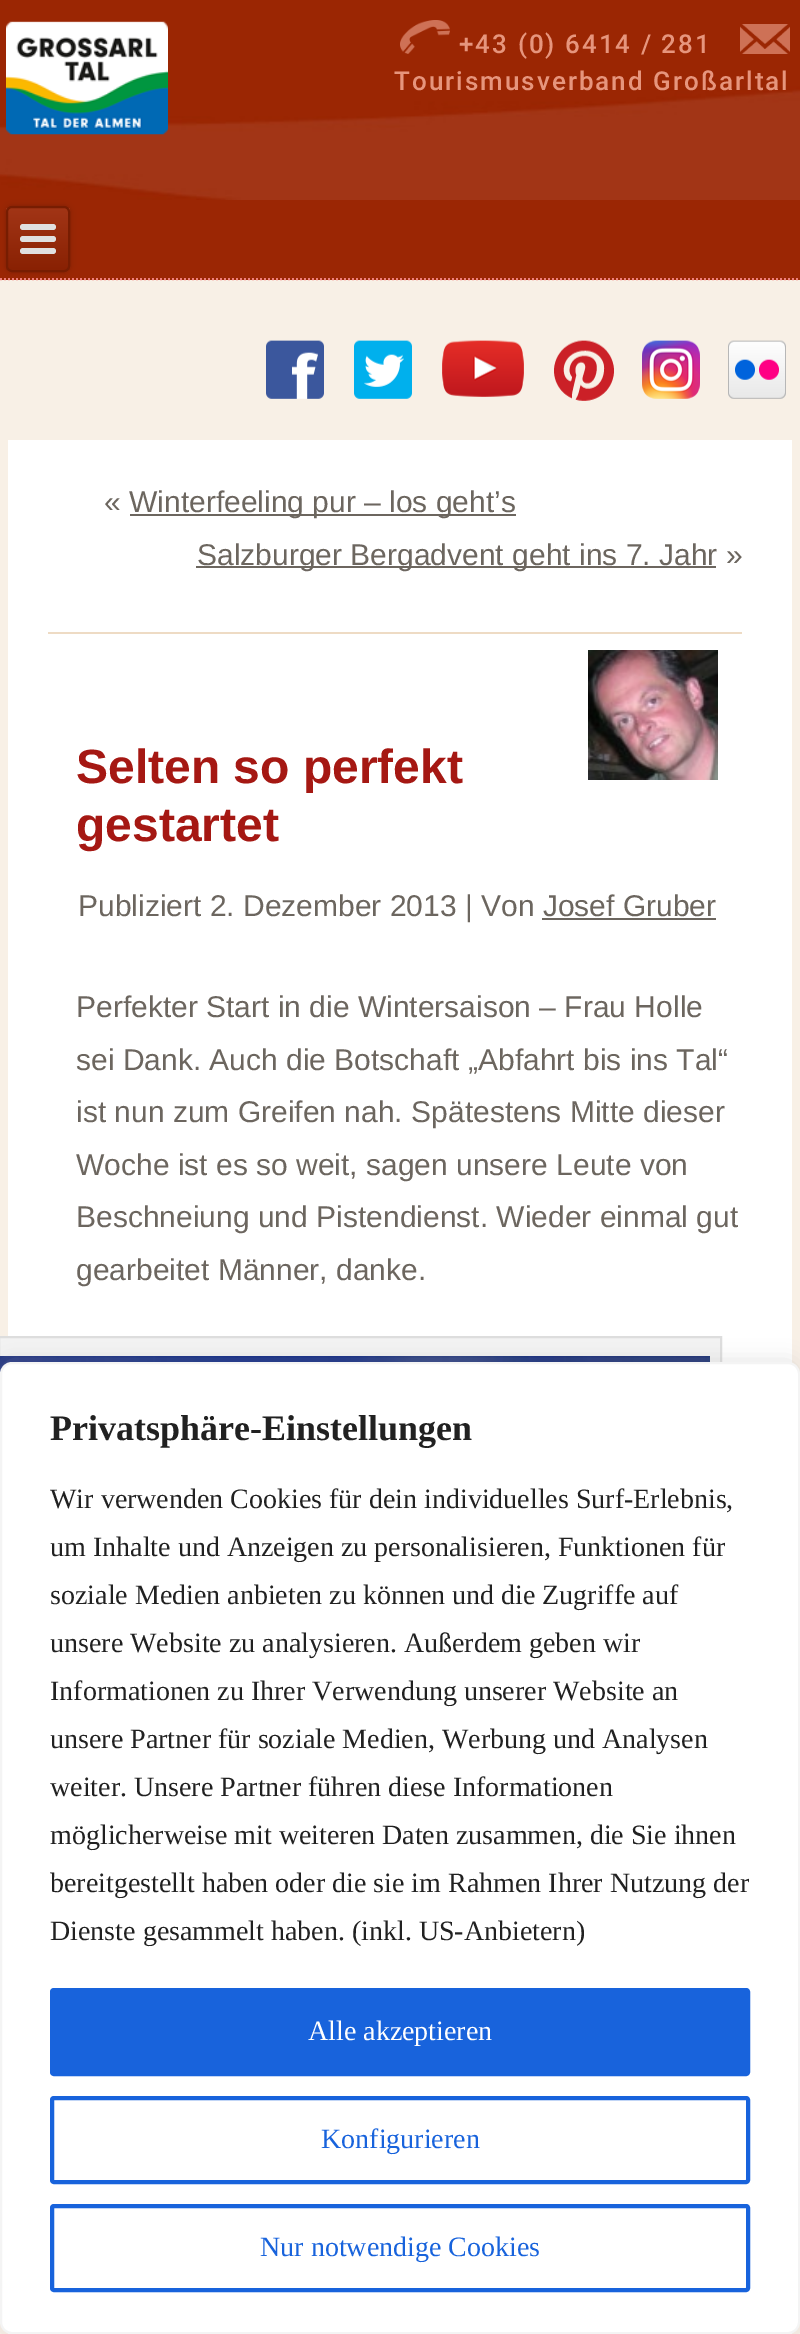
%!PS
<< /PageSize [800 2334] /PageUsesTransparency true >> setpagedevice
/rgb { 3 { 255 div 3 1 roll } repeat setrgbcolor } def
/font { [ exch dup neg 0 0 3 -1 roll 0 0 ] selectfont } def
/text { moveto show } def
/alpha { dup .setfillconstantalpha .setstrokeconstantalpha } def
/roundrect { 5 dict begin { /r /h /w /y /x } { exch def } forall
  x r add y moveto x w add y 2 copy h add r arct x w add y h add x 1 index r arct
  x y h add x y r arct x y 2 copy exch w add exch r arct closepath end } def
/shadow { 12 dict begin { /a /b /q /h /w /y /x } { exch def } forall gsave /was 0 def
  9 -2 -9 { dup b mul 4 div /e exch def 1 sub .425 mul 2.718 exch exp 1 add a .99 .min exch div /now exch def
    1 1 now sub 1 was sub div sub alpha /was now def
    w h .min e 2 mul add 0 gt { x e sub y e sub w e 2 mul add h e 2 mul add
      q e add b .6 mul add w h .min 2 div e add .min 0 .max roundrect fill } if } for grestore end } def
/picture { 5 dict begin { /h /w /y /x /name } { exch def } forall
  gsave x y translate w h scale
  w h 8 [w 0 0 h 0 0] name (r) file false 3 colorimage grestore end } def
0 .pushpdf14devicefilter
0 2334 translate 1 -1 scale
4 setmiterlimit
248 240 230 rgb
0 0 800 2334 rectfill
(img_01.rgb) 0 0 800 200 picture
(img_02.rgb) 6 21 162 114 picture
(img_03.rgb) 400 20 50 34 picture
(img_04.rgb) 740 24 50 30 picture
155 38 4 rgb
0 200 800 80 rectfill
239 127 123 rgb
2 setlinewidth
[2 2] 0 setdash
0 279 moveto 800 0 rlineto stroke
0 0 0 rgb
6 206 64 66 6 3 0.2 shadow
gsave
6 206 64 66 6 roundrect clip newpath
gsave 6 208 moveto 64 0 rlineto 0 62 rlineto -64 0 rlineto closepath clip newpath
<< /ShadingType 2 /ColorSpace /DeviceRGB /Coords [38 208 38 270] /Extend [true true] /Function << /FunctionType 2 /Domain [0 1] /C0 [0.635 0.208 0.086] /C1 [0.537 0.129 0.012] /N 1 >> >> shfill grestore
grestore
119 29 2 rgb
[] 0 setdash
7 207 62 64 5 roundrect stroke
224 224 224 rgb
20 224 36 6 3 roundrect fill
20 236 36 6 3 roundrect fill
20 248 36 6 3 roundrect fill
(img_05.rgb) 266 340 58 59 picture
(img_06.rgb) 354 340 58 59 picture
(img_07.rgb) 442 340 82 57 picture
(img_08.rgb) 554 340 60 61 picture
(img_09.rgb) 642 340 58 59 picture
(img_10.rgb) 728 340 58 59 picture
255 255 255 rgb
8 440 784 1894 rectfill
238 219 196 rgb
48 632 694 2 rectfill
108 102 95 rgb
130 514 386 2 rectfill
196 566 520 2 rectfill
(img_11.rgb) 588 650 130 130 picture
542 918 174 2 rectfill
243 243 243 rgb
0 1338 720 24 rectfill
221 221 221 rgb
-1 1337 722 738 rectstroke
(img_12.rgb) 0 1356 710 18 picture
172 171 171 rgb
0 1360 800 972 12 10 0.3 shadow
255 255 255 rgb
1 1363 798 970 11 roundrect gsave fill grestore
244 244 244 rgb
stroke
24 99 220 rgb
52 1990 696 84 2 roundrect gsave fill grestore
4 setlinewidth
stroke
52 2098 696 84 2 roundrect stroke
52 2206 696 84 2 roundrect stroke
/Roboto-Medium 26 font
230 149 125 rgb
459 53 moveto 2 0 (+43 \(0\) 6414 / 281) ashow
394 90 moveto 2 0 (Tourismusverband Großarltal) ashow
/LiberationSans-Regular 30 font
108 102 95 rgb
(«) 104 512 text
(Winterfeeling pur – los geht’s) 129 512 text
(Salzburger Bergadvent geht ins 7. Jahr ») 197 565 text
/LiberationSans-Bold 48 font
165 24 19 rgb
(Selten so perfekt) 76 783 text
(gestartet) 76 841 text
/LiberationSans-Regular 30 font
108 102 95 rgb
(Publiziert 2. Dezember 2013 | Von Josef Gruber) 78 916 text
(Perfekter Start in die Wintersaison – Frau Holle) 76 1017 text
(sei Dank. Auch die Botschaft „Abfahrt bis ins Tal“) 76 1070 text
(ist nun zum Greifen nah. Spätestens Mitte dieser) 76 1122 text
(Woche ist es so weit, sagen unsere Leute von) 76 1175 text
(Beschneiung und Pistendienst. Wieder einmal gut) 76 1227 text
(gearbeitet Männer, danke.) 76 1280 text
/LiberationSerif-Bold 36 font
33 33 33 rgb
(Privatsphäre-Einstellungen) 50 1440 text
/LiberationSerif-Regular 28 font
(Wir verwenden Cookies für dein individuelles Surf-Erlebnis,) 50 1508 text
(um Inhalte und Anzeigen zu personalisieren, Funktionen für) 50 1556 text
(soziale Medien anbieten zu können und die Zugriffe auf) 50 1604 text
(unsere Website zu analysieren. Außerdem geben wir) 50 1652 text
(Informationen zu Ihrer Verwendung unserer Website an) 50 1700 text
(unsere Partner für soziale Medien, Werbung und Analysen) 50 1748 text
(weiter. Unsere Partner führen diese Informationen) 50 1796 text
(möglicherweise mit weiteren Daten zusammen, die Sie ihnen) 50 1844 text
(bereitgestellt haben oder die sie im Rahmen Ihrer Nutzung der) 50 1892 text
(Dienste gesammelt haben. \(inkl. US-Anbietern\)) 50 1940 text
255 255 255 rgb
(Alle akzeptieren) 308 2040 text
24 99 220 rgb
(Konfigurieren) 321 2148 text
(Nur notwendige Cookies) 260 2256 text
.poppdf14devicefilter showpage
